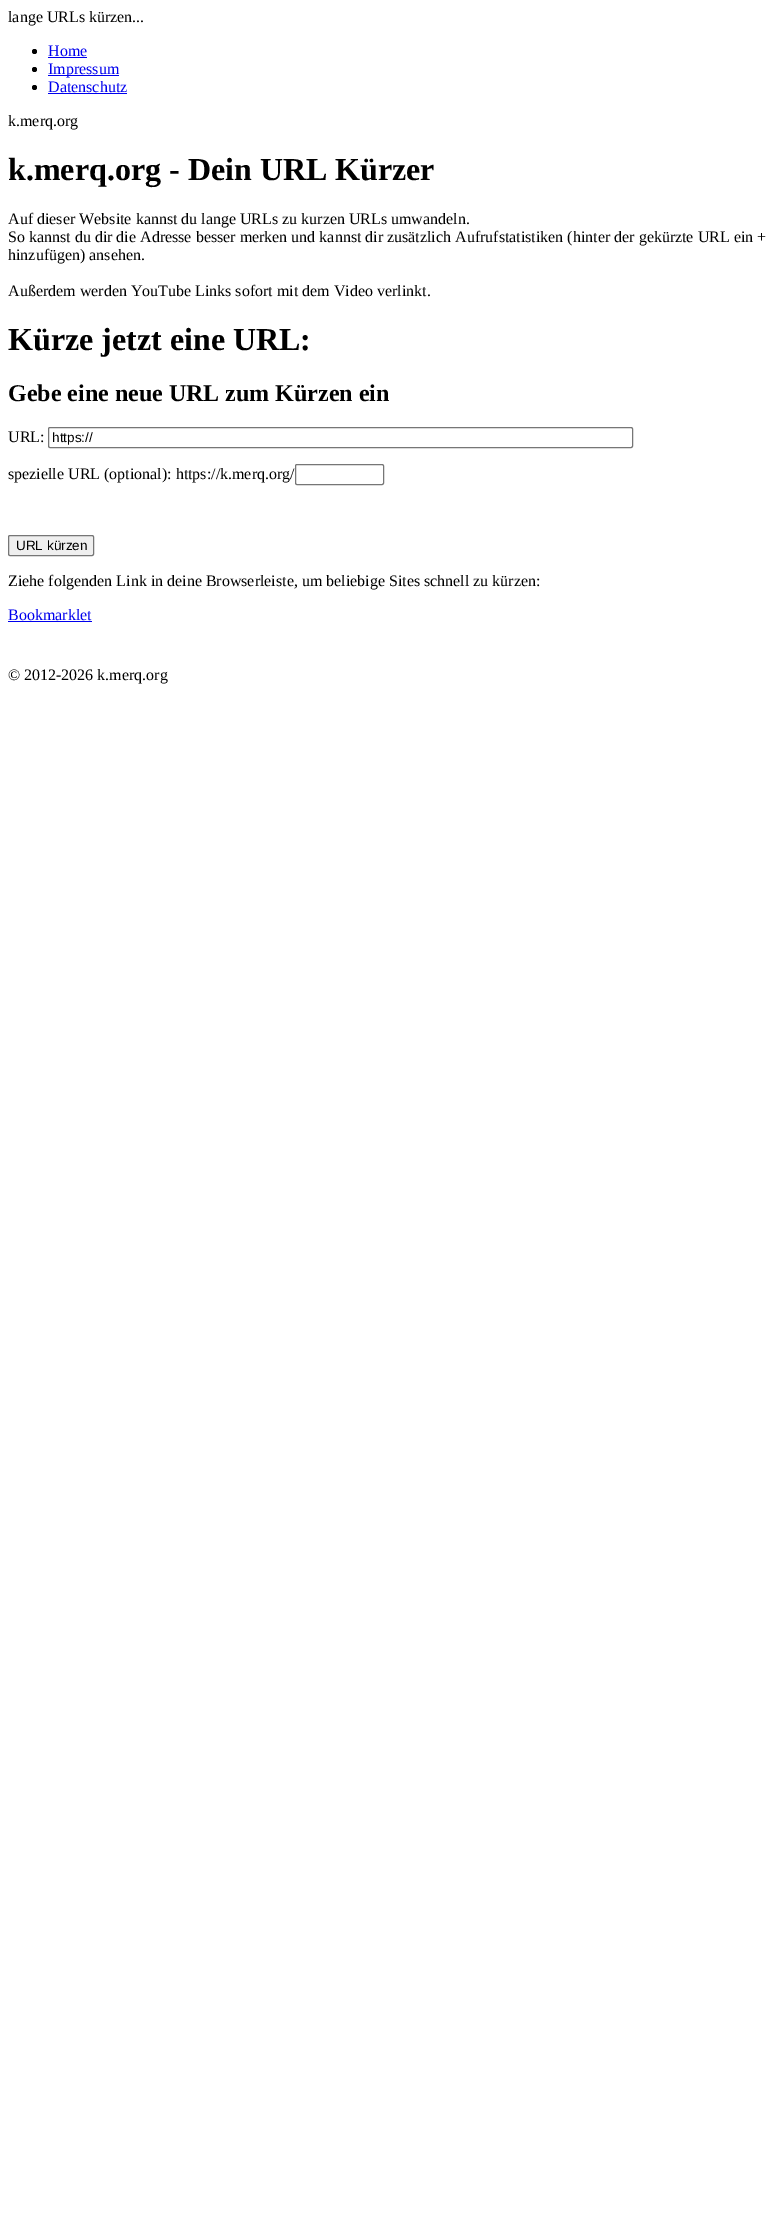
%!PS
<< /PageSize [775 2216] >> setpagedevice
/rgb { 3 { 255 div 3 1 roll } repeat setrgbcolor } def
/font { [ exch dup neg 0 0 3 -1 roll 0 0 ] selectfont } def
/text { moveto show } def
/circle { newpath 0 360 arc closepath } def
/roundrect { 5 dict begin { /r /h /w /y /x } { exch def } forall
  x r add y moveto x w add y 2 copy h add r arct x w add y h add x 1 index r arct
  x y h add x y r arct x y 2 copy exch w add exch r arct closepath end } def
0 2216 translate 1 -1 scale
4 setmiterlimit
255 255 255 rgb
0 0 775 2216 rectfill
0 0 0 rgb
34.5 51.5 2.5 circle fill
0 0 238 rgb
48 57 39 1 rectfill
0 0 0 rgb
34.5 69.5 2.5 circle fill
0 0 238 rgb
48 75 71 1 rectfill
0 0 0 rgb
34.5 87.5 2.5 circle fill
0 0 238 rgb
48 93 79 1 rectfill
118 118 118 rgb
48.5 427.5 584 20 1.5 roundrect stroke
295.5 464.5 88 20 1.5 roundrect stroke
239 239 239 rgb
8.5 535.5 85 20 1.5 roundrect gsave fill grestore
118 118 118 rgb
stroke
0 0 238 rgb
8 621 84 1 rectfill
/LiberationSerif-Regular 16 font
0 0 0 rgb
(lange URLs kürzen...) 8 22 text
0 0 238 rgb
(Home) 48 56 text
(Impressum) 48 74 text
(Datenschutz) 48 92 text
0 0 0 rgb
(k.merq.org) 8 126 text
/LiberationSerif-Bold 32 font
(k.merq.org - Dein URL Kürzer) 8 180 text
/LiberationSerif-Regular 16 font
(Auf dieser Website kannst du lange URLs zu kurzen URLs umwandeln.) 8 224 text
(So kannst du dir die Adresse besser merken und kannst dir zusätzlich Aufrufstatistiken \(hinter der gekürzte URL ein +) 8 242 text
(hinzufügen\) ansehen.) 8 260 text
(Außerdem werden YouTube Links sofort mit dem Video verlinkt.) 8 296 text
/LiberationSerif-Bold 32 font
(Kürze jetzt eine URL:) 8 350 text
/LiberationSerif-Bold 24 font
(Gebe eine neue URL zum Kürzen ein) 8 401 text
/LiberationSerif-Regular 16 font
(URL:) 8 442 text
/LiberationSans-Regular 13.5 font
(https://) 52 442 text
/LiberationSerif-Regular 16 font
(spezielle URL \(optional\): https://k.merq.org/) 8 479 text
/LiberationSans-Regular 13.5 font
(URL kürzen) 16 550 text
/LiberationSerif-Regular 16 font
(Ziehe folgenden Link in deine Browserleiste, um beliebige Sites schnell zu kürzen:) 8 586 text
0 0 238 rgb
(Bookmarklet) 8 620 text
0 0 0 rgb
(© 2012-2026 k.merq.org) 8 680 text
showpage
